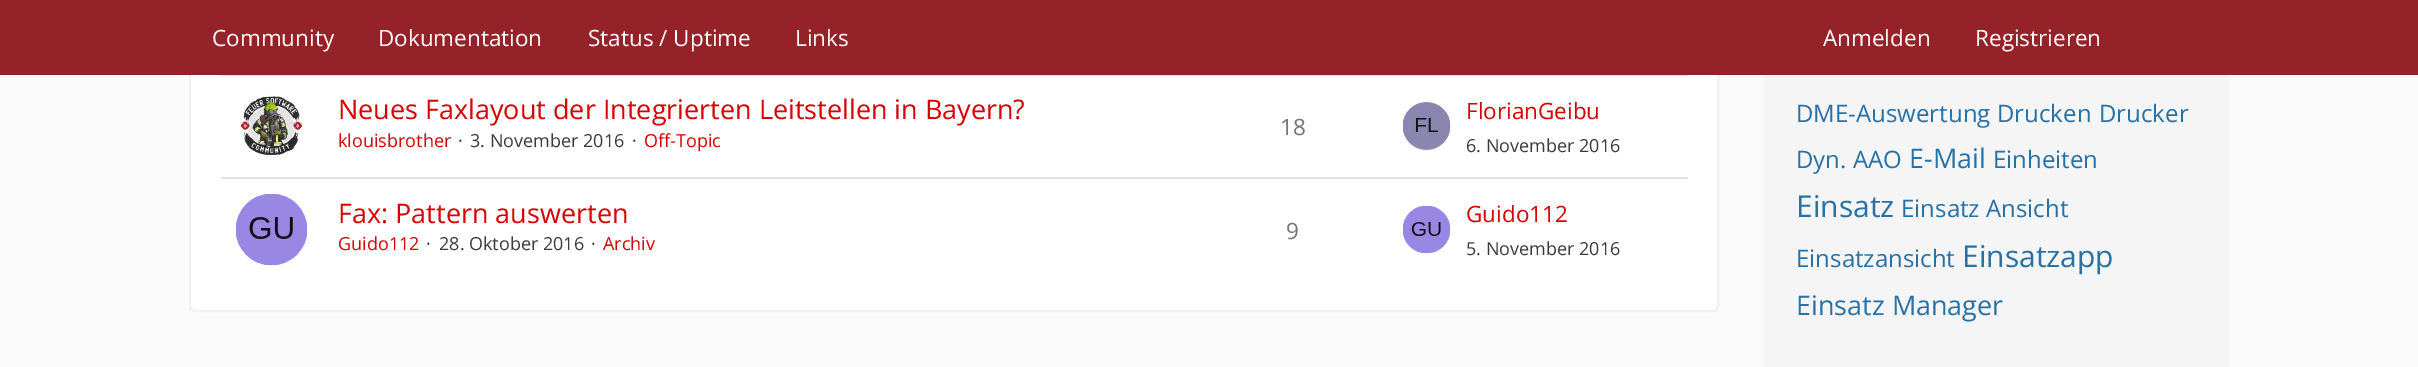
%!PS
<< /PageSize [2418 367] >> setpagedevice
/rgb { 3 { 255 div 3 1 roll } repeat setrgbcolor } def
/font { [ exch dup neg 0 0 3 -1 roll 0 0 ] selectfont } def
/text { moveto show } def
/roundrect { 5 dict begin { /r /h /w /y /x } { exch def } forall
  x r add y moveto x w add y 2 copy h add r arct x w add y h add x 1 index r arct
  x y h add x y r arct x y 2 copy exch w add exch r arct closepath end } def
/picture { 5 dict begin { /h /w /y /x /name } { exch def } forall
  gsave x y translate w h scale
  w h 8 [w 0 0 h 0 0] name (r) file false 3 colorimage grestore end } def
0 367 translate 1 -1 scale
4 setmiterlimit
250 250 250 rgb
0 0 2418 367 rectfill
255 255 255 rgb
190 -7 1528 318 5 roundrect gsave fill grestore
236 241 247 rgb
2 setlinewidth
stroke
149 34 41 rgb
0 0 2418 75 rectfill
224 224 224 rgb
221 75 1467 1 rectfill
(img_01.rgb) 240 95 63 60 picture
(img_02.rgb) 1403 102 48 48 picture
221 177 1467 2 rectfill
(img_03.rgb) 236 194 72 72 picture
(img_04.rgb) 1403 206 48 48 picture
245 245 245 rgb
1764 75 465 292 rectfill
/OpenSans-Regular 22.5 font
255 255 255 rgb
(Community) 212 46 text
(Dokumentation) 378 46 text
(Status / Uptime) 588 46 text
(Links) 795 46 text
(Anmelden) 1823 46 text
(Registrieren) 1975 46 text
/OpenSans-Regular 27 font
213 0 0 rgb
(Neues Faxlayout der Integrierten Leitstellen in Bayern?) 338 119 text
/OpenSans-Regular 18 font
(klouisbrother) 338 147 text
58 58 61 rgb
(·) 458 147 text
(3. November 2016) 470 147 text
(·) 632 147 text
213 0 0 rgb
(Off-Topic) 644 147 text
/OpenSans-Regular 22.5 font
113 117 122 rgb
(18) 1280 135 text
213 0 0 rgb
(FlorianGeibu) 1466 119 text
/OpenSans-Regular 18 font
58 58 61 rgb
(6. November 2016) 1466 152 text
/OpenSans-Regular 27 font
213 0 0 rgb
(Fax: Pattern auswerten) 338 223 text
/OpenSans-Regular 18 font
(Guido112) 338 250 text
58 58 61 rgb
(·) 426 250 text
(28. Oktober 2016) 439 250 text
(·) 591 250 text
213 0 0 rgb
(Archiv) 603 250 text
/OpenSans-Regular 22.5 font
113 117 122 rgb
(9) 1286 239 text
213 0 0 rgb
(Guido112) 1466 222 text
/OpenSans-Regular 18 font
58 58 61 rgb
(5. November 2016) 1466 255 text
/OpenSans-Regular 24 font
38 113 166 rgb
(DME-Auswertung) 1796 122 text
(Drucken) 1997 122 text
(Drucker) 2099 122 text
(Dyn. AAO) 1796 168 text
/OpenSans-Regular 27 font
(E-Mail) 1909 168 text
/OpenSans-Regular 24 font
(Einheiten) 1993 168 text
/OpenSans-Regular 30 font
(Einsatz) 1796 217 text
/OpenSans-Regular 24 font
(Einsatz Ansicht) 1901 217 text
(Einsatzansicht) 1796 267 text
/OpenSans-Regular 30 font
(Einsatzapp) 1962 267 text
/OpenSans-Regular 27 font
(Einsatz Manager) 1796 315 text
showpage
